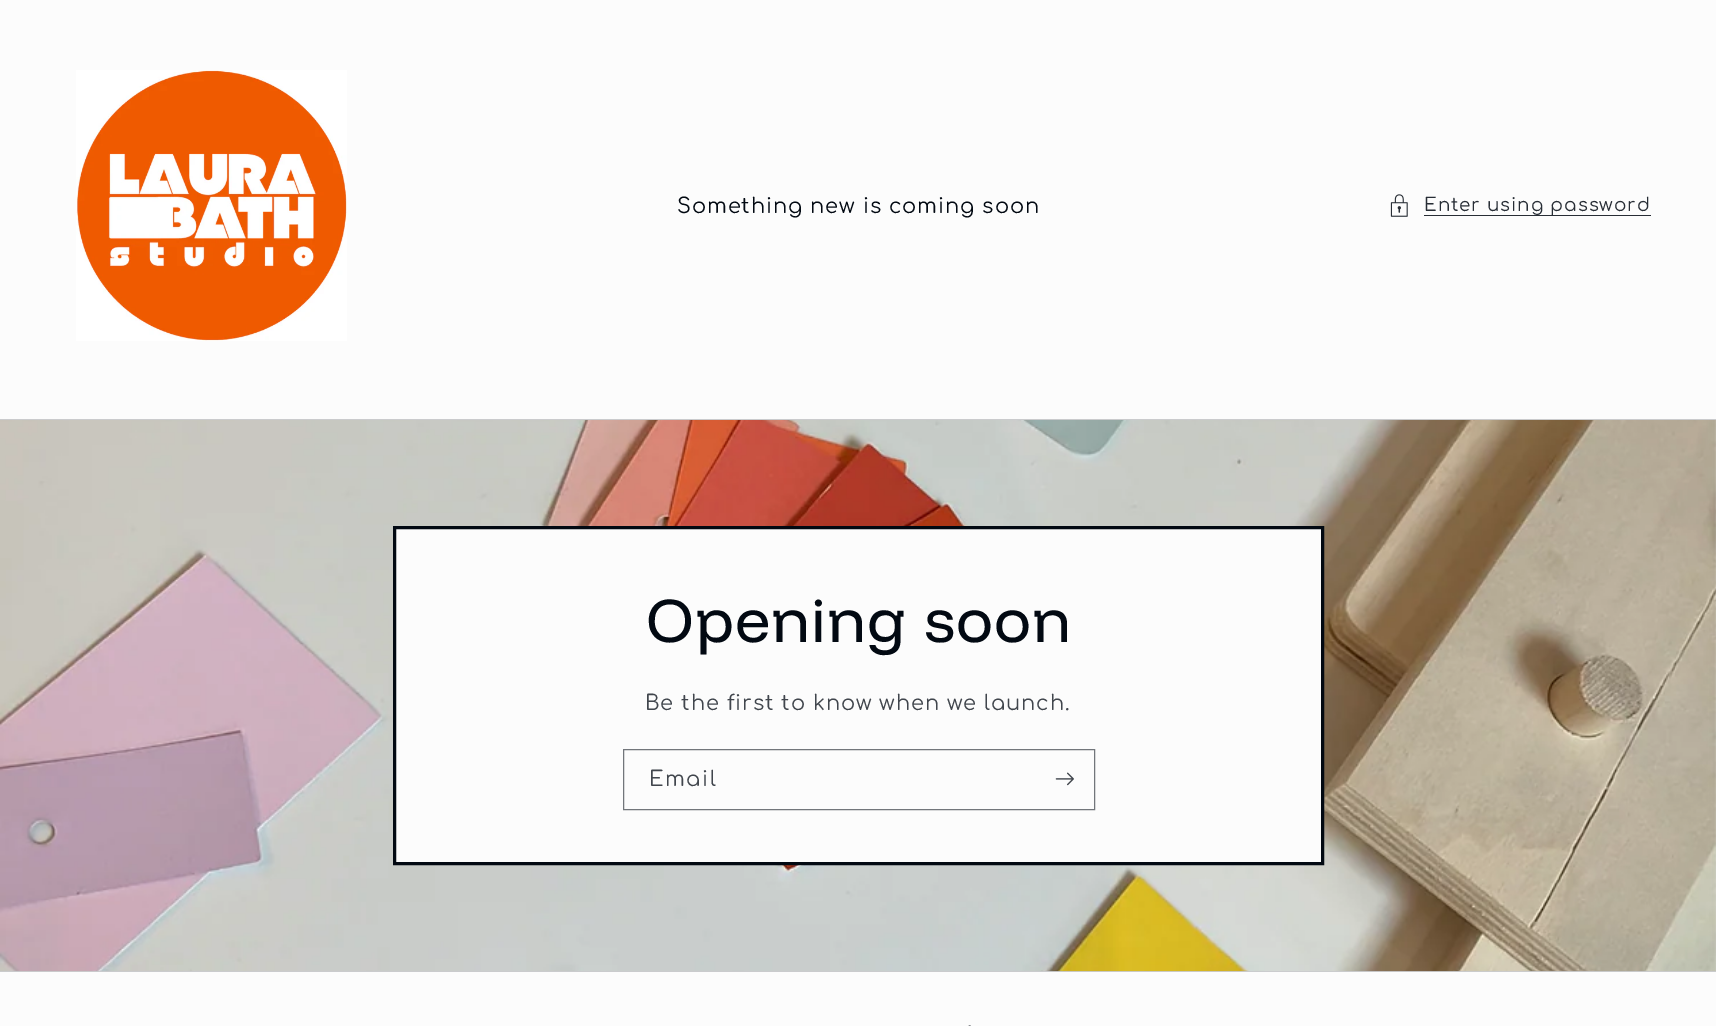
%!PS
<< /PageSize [1716 1026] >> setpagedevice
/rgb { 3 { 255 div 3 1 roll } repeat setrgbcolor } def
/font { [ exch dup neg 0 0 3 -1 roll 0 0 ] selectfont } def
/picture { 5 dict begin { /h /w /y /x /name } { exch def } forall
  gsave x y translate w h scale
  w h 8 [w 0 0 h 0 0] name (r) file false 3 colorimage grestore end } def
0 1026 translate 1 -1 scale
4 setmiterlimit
252 252 252 rgb
0 0 1716 1026 rectfill
(img_01.rgb) 76 70 271 271 picture
(img_02.rgb) 1390 194 18 23 picture
40 45 53 rgb
1424 215 227 1 rectfill
202 203 205 rgb
0 419 1716 1 rectfill
0 971 1716 1 rectfill
(img_03.rgb) 0 420 1716 552 picture
252 252 252 rgb
394.5 527.5 moveto 928 0 rlineto 0 336 rlineto -928 0 rlineto closepath gsave fill grestore
2 9 18 rgb
3 setlinewidth
stroke
114 118 123 rgb
1 setlinewidth
623.5 749.5 471 60 rectstroke
(img_04.rgb) 1055 772 19 14 picture
(img_05.rgb) 968 1025 3 1 picture
/Comfortaa-Regular 21 font
2 9 18 rgb
677 213 moveto 0.9 0 (Something new is coming soon) ashow
/Comfortaa-Regular 18.4 font
39 45 53 rgb
1424 211 moveto 0.9 0 (Enter using password) ashow
/FunnelDisplay-Regular 62.5 font
2 9 18 rgb
646 642 moveto 1 0 (Opening soon) ashow
/Comfortaa-Regular 21 font
65 70 77 rgb
645 710 moveto 0.9 0 (Be the first to know when we launch.) ashow
649 786 moveto 1.5 0 (Email) ashow
showpage
